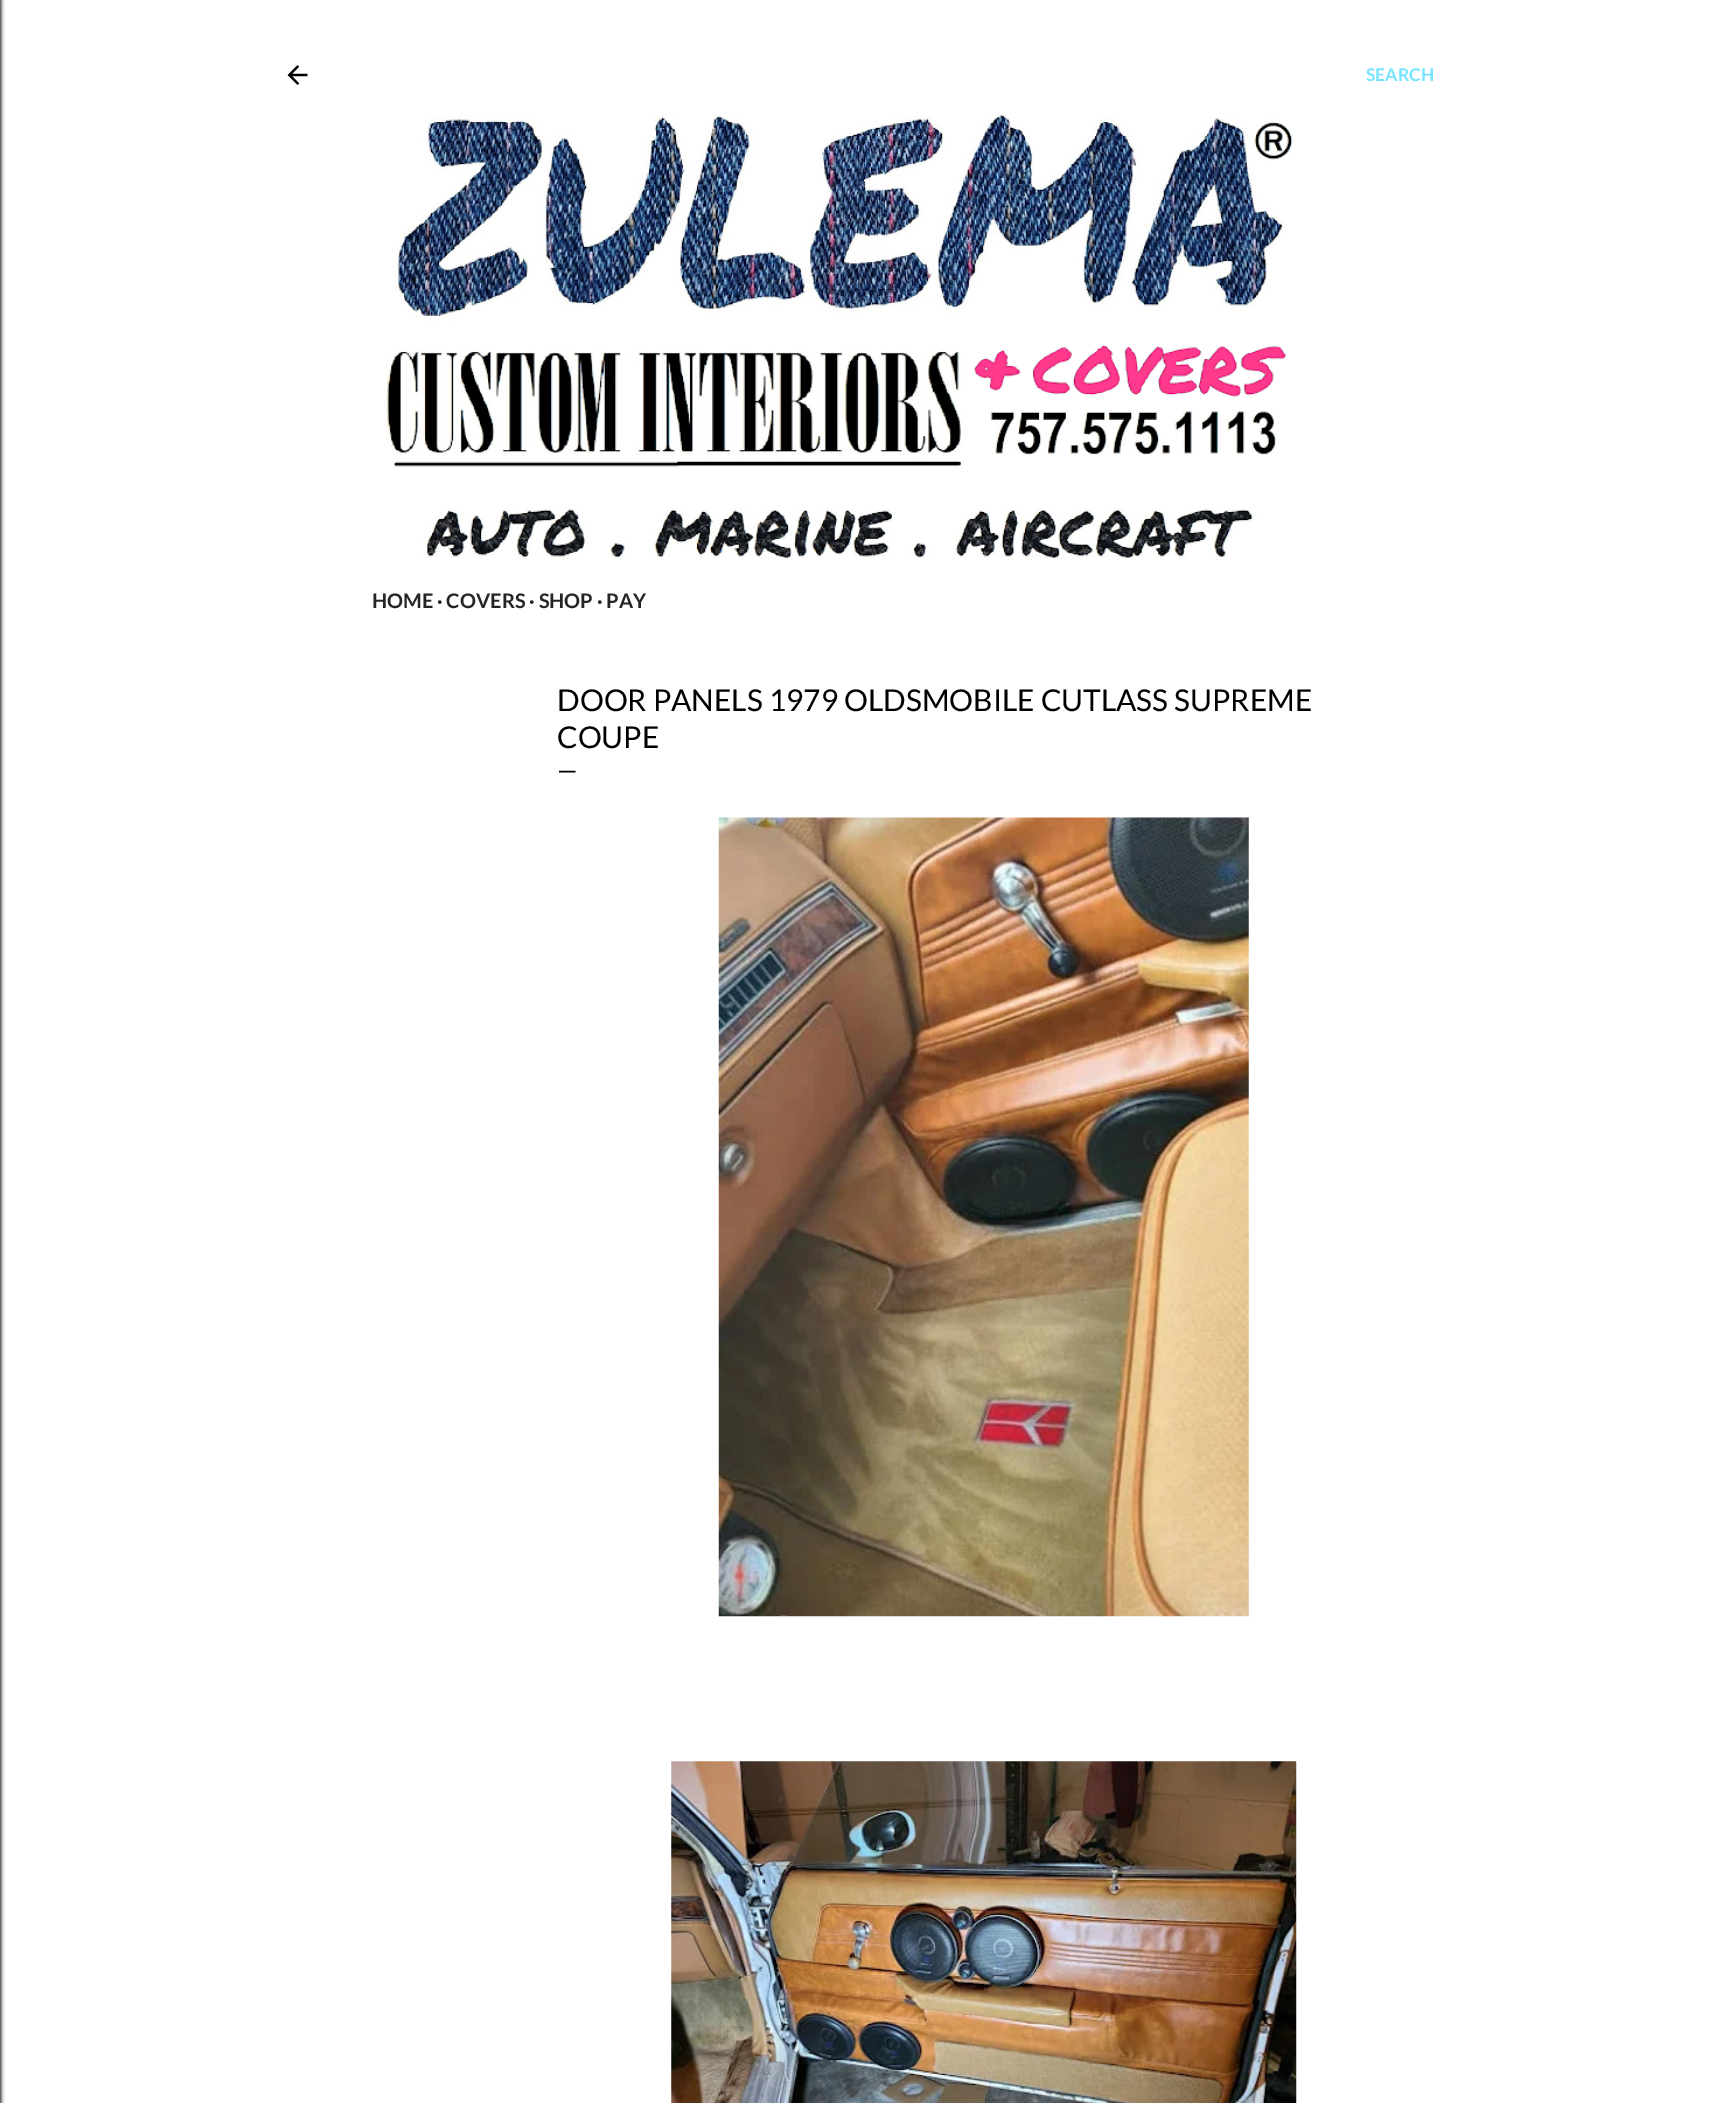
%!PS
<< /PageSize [1716 2103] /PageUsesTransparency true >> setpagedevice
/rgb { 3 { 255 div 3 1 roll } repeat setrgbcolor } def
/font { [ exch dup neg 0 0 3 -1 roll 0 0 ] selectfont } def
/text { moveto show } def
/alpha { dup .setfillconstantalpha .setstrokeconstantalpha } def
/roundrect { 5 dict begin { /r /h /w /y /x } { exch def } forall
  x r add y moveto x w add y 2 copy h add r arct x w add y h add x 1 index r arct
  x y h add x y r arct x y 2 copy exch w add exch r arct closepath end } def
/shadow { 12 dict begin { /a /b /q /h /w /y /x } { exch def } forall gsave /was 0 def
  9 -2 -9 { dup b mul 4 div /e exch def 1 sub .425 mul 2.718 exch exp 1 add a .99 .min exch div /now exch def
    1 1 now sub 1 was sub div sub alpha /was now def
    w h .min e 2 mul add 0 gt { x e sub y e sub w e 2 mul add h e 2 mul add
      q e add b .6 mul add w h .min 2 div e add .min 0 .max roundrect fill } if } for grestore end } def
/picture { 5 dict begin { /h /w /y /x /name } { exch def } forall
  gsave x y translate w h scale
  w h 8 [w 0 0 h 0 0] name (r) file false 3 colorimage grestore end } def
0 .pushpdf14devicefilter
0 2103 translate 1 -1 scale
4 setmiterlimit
255 255 255 rgb
0 0 1716 2103 rectfill
0 0 0 rgb
-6 0 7 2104 0 2 1 shadow
(img_01.rgb) 287 65 21 20 picture
(img_02.rgb) 386 114 907 446 picture
(img_03.rgb) 718 817 531 800 picture
(img_04.rgb) 671 1761 626 342 picture
/Lato-Bold 17.5 font
119 228 255 rgb
(SEARCH) 1366 81 text
/Lato-Bold 20 font
37 37 37 rgb
(HOME · COVERS · SHOP · PAY) 372 608 text
/Lato-Regular 30 font
0 0 0 rgb
(DOOR PANELS 1979 OLDSMOBILE CUTLASS SUPREME) 557 711 text
(COUPE) 557 748 text
/Lato-Regular 25 font
(—) 557 779 text
.poppdf14devicefilter showpage
